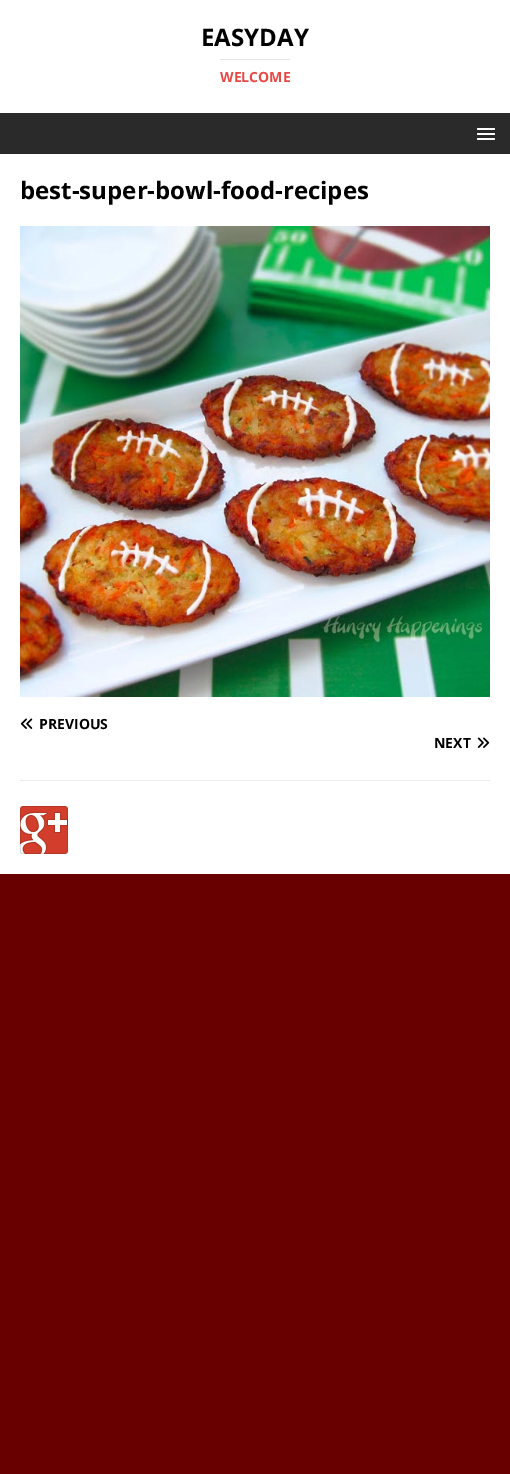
%!PS
<< /PageSize [510 1474] >> setpagedevice
/rgb { 3 { 255 div 3 1 roll } repeat setrgbcolor } def
/font { [ exch dup neg 0 0 3 -1 roll 0 0 ] selectfont } def
/text { moveto show } def
/roundrect { 5 dict begin { /r /h /w /y /x } { exch def } forall
  x r add y moveto x w add y 2 copy h add r arct x w add y h add x 1 index r arct
  x y h add x y r arct x y 2 copy exch w add exch r arct closepath end } def
/picture { 5 dict begin { /h /w /y /x /name } { exch def } forall
  gsave x y translate w h scale
  w h 8 [w 0 0 h 0 0] name (r) file false 3 colorimage grestore end } def
0 1474 translate 1 -1 scale
4 setmiterlimit
104 0 0 rgb
0 0 510 1474 rectfill
255 255 255 rgb
0 0 510 113 rectfill
229 229 229 rgb
220 59 70 1 rectfill
42 42 42 rgb
0 113 510 41 rectfill
255 255 255 rgb
477 128 18 2 1 roundrect fill
477 133 18 2 1 roundrect fill
477 138 18 2 1 roundrect fill
0 154 510 720 rectfill
(img_01.rgb) 20 226 470 471 picture
235 235 235 rgb
20 780 470 1 rectfill
(img_02.rgb) 20 718 13 11 picture
(img_03.rgb) 477 737 13 11 picture
(img_04.rgb) 20 806 48 48 picture
/OpenSans-Bold 24 font
0 0 0 rgb
(EASYDAY) 201 46 text
/OpenSans-Bold 14 font
230 73 70 rgb
(WELCOME) 220 82 text
/OpenSans-Bold 24 font
0 0 0 rgb
(best-super-bowl-food-recipes) 20 199 text
/OpenSans-Bold 14 font
(PREVIOUS) 39 729 text
(NEXT) 434 748 text
showpage
